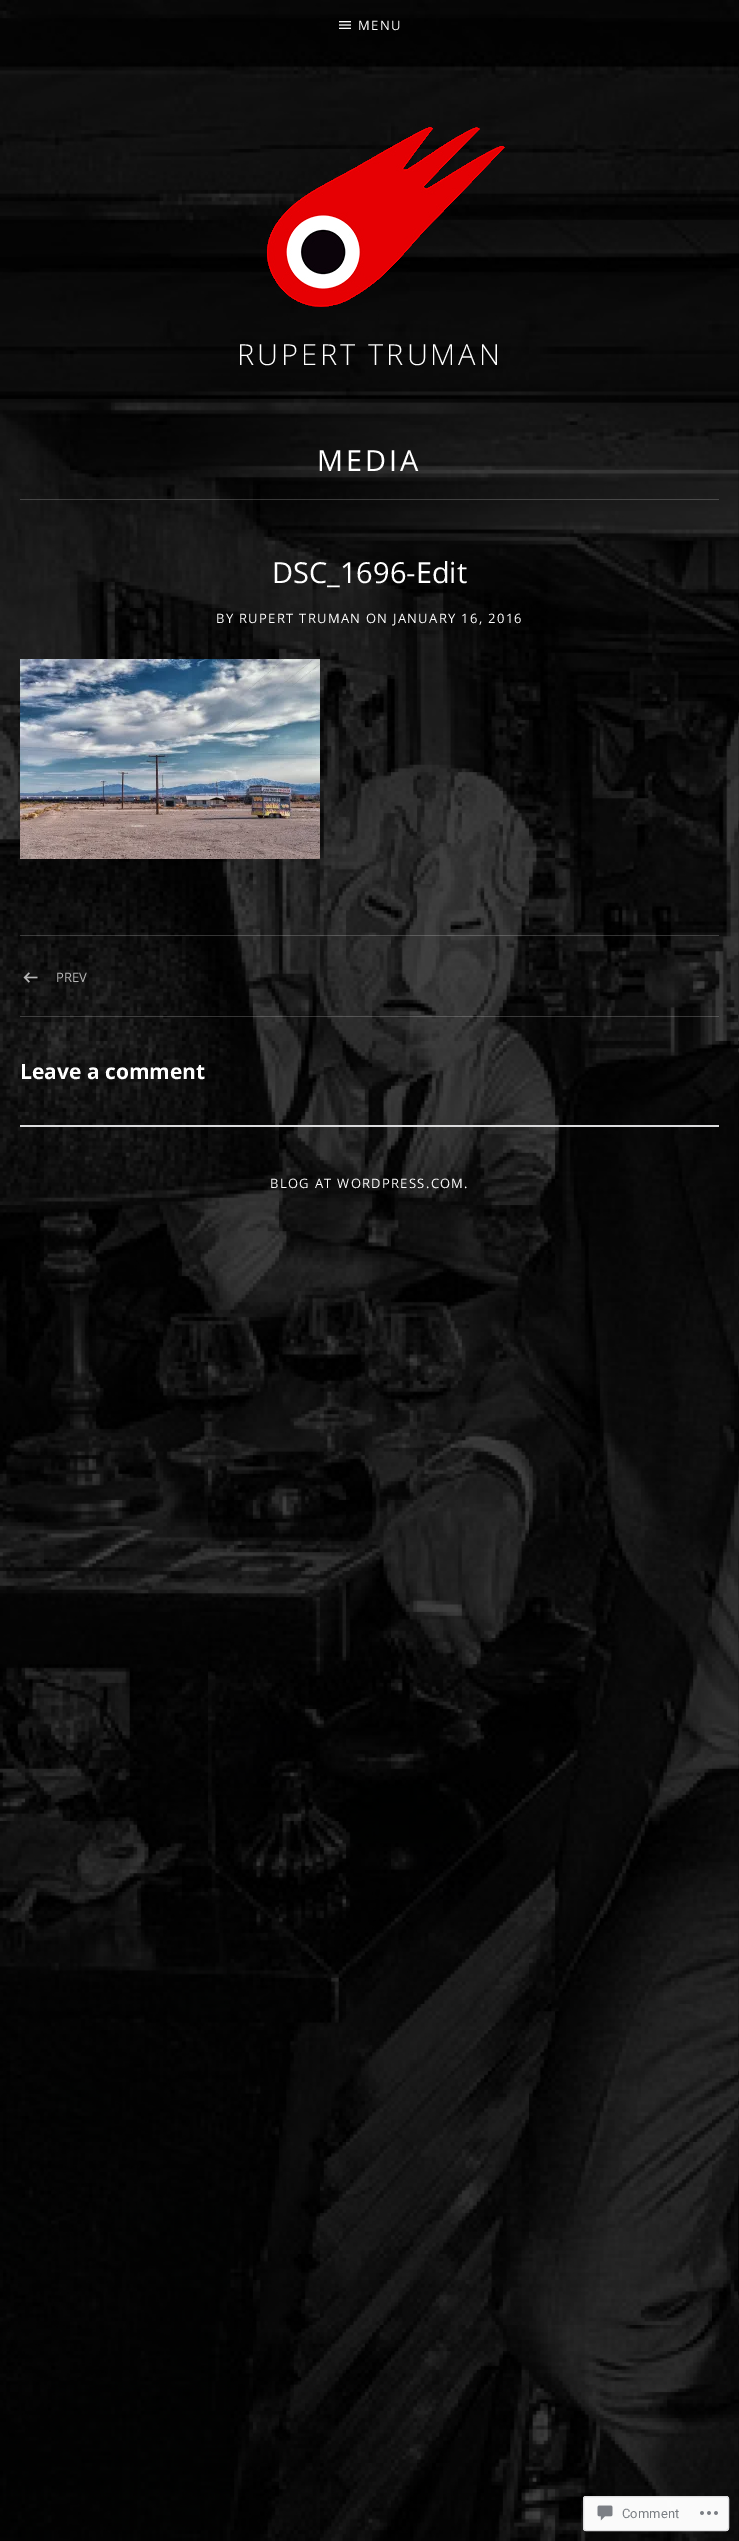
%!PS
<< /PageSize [739 2541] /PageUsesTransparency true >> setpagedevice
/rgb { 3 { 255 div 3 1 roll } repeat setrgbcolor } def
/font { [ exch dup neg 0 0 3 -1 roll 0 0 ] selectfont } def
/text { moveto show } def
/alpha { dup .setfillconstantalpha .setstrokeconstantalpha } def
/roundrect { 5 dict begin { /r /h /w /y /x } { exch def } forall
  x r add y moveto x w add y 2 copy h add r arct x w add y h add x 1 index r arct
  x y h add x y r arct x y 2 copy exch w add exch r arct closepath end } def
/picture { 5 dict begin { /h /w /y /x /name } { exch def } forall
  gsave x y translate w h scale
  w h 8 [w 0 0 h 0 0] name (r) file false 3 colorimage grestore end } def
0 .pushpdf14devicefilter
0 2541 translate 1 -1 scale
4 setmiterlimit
255 255 255 rgb
0 0 739 2541 rectfill
(img_01.rgb) 0 0 739 2541 picture
(img_02.rgb) 339 21 12 8 picture
(img_03.rgb) 267 127 238 180 picture
0.2 alpha
20 499 699 1 rectfill
1 alpha
(img_04.rgb) 20 659 300 200 picture
0.2 alpha
20 935 699 1 rectfill
1 alpha
(img_05.rgb) 23 972 15 11 picture
0.2 alpha
20 1016 699 1 rectfill
1 alpha
220 220 222 rgb
20 1125 699 2 rectfill
0.98 alpha
255 255 255 rgb
583 2496 146 35 3 roundrect fill
220 220 222 rgb
583.5 2496.5 145 34 2.5 roundrect stroke
1 alpha
(img_06.rgb) 597 2505 16 16 picture
(img_07.rgb) 700 2511 18 4 picture
/OpenSans-Regular 13 font
255 255 255 rgb
358 30 moveto 1.3 0 (MENU) ashow
/OpenSans-Light 29 font
237 365 moveto 2.9 0 (RUPERT TRUMAN) ashow
/OpenSans-Regular 29 font
317 471 moveto 2.9 0 (MEDIA) ashow
(DSC_1696-Edit) 272 583 text
/OpenSans-Regular 13 font
216 623 moveto 1.3 0 (BY RUPERT TRUMAN ON JANUARY 16, 2016) ashow
184 184 184 rgb
(PREV) 56 982 text
/OpenSans-Bold 21 font
255 255 255 rgb
(Leave a comment) 20 1079 text
/OpenSans-Regular 13 font
270 1188 moveto 1.3 0 (BLOG AT WORDPRESS.COM.) ashow
/Roboto-Regular 13 font
123 127 132 rgb
(Comment) 622 2518 text
.poppdf14devicefilter showpage
